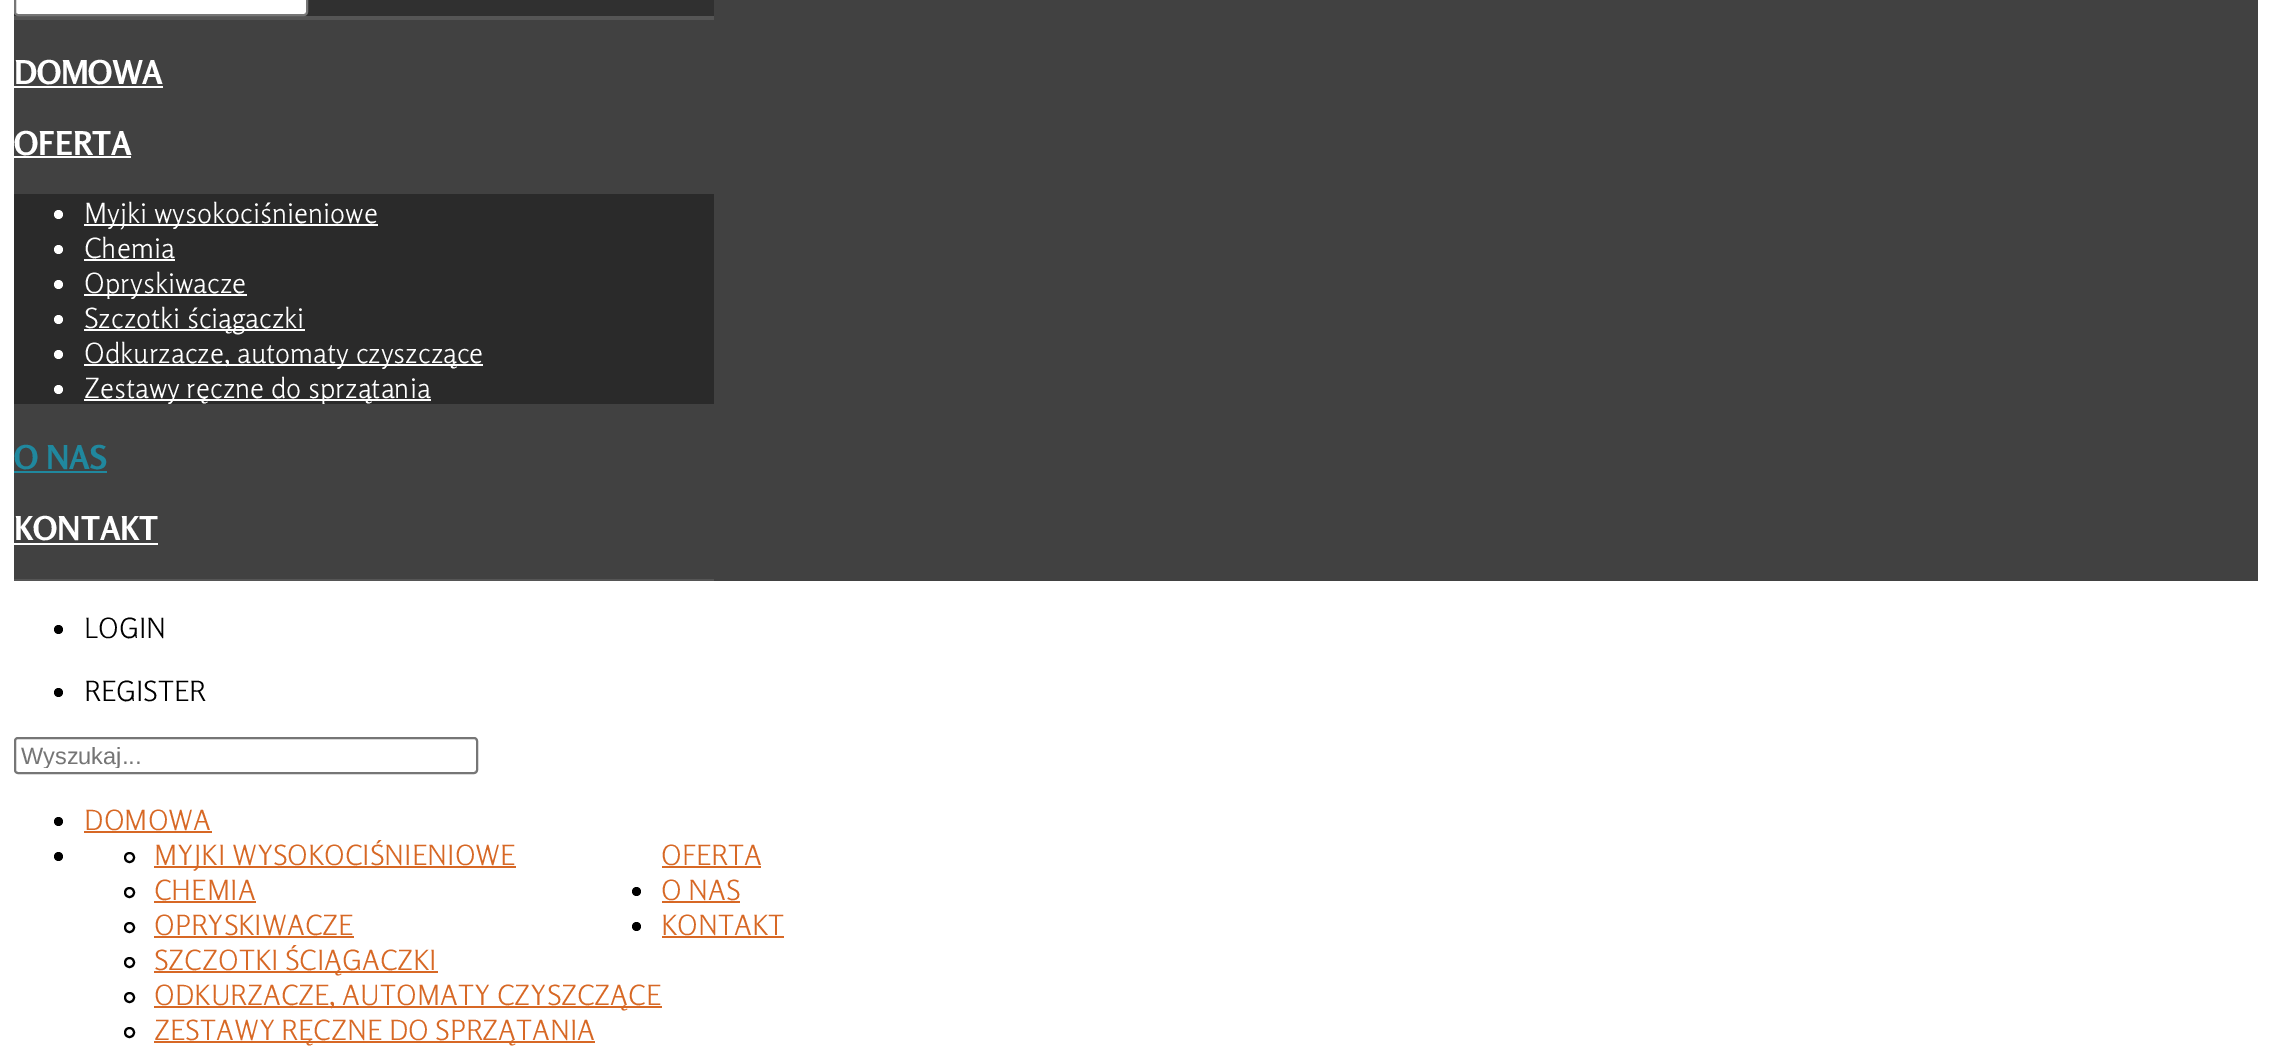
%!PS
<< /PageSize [2271 1062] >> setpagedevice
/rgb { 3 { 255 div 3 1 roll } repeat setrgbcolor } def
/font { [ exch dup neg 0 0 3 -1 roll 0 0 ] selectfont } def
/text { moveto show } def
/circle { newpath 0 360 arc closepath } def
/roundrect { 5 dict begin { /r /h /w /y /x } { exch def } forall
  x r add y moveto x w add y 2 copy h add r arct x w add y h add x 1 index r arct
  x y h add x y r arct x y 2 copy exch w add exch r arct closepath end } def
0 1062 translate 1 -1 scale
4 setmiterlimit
255 255 255 rgb
0 0 2271 1062 rectfill
65 65 65 rgb
14 0 2244 581 rectfill
85 85 85 rgb
14 16 700 4 rectfill
48 48 48 rgb
14 0 700 16 rectfill
255 255 255 rgb
15 -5 292 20 3 roundrect gsave fill grestore
118 118 118 rgb
2 setlinewidth
stroke
85 85 85 rgb
14 579 700 2 rectfill
255 255 255 rgb
14 86 149 2 rectfill
14 156 117 2 rectfill
42 42 42 rgb
14 194 700 210 rectfill
255 255 255 rgb
58.5 214.5 4.5 circle fill
84 224 294 2 rectfill
58.5 249.5 4.5 circle fill
84 259 91 2 rectfill
58.5 284.5 4.5 circle fill
84 294 163 2 rectfill
58.5 319.5 4.5 circle fill
84 329 221 2 rectfill
58.5 354.5 4.5 circle fill
84 364 399 2 rectfill
58.5 389.5 4.5 circle fill
84 399 347 2 rectfill
32 136 158 rgb
14 471 93 2 rectfill
255 255 255 rgb
14 543 144 2 rectfill
0 0 0 rgb
58.5 629.5 4.5 circle fill
58.5 692.5 4.5 circle fill
118 118 118 rgb
15 738 462 35 3 roundrect stroke
0 0 0 rgb
58.5 821.5 4.5 circle fill
215 104 37 rgb
84 831 128 2 rectfill
0 0 0 rgb
58.5 856.5 4.5 circle fill
129.5 857.5 4.5 circle stroke
215 104 37 rgb
154 866 362 2 rectfill
0 0 0 rgb
129.5 892.5 4.5 circle stroke
215 104 37 rgb
154 901 102 2 rectfill
0 0 0 rgb
129.5 927.5 4.5 circle stroke
215 104 37 rgb
154 936 200 2 rectfill
0 0 0 rgb
129.5 962.5 4.5 circle stroke
215 104 37 rgb
154 971 284 2 rectfill
0 0 0 rgb
129.5 997.5 4.5 circle stroke
215 104 37 rgb
154 1006 508 2 rectfill
0 0 0 rgb
129.5 1032.5 4.5 circle stroke
215 104 37 rgb
154 1041 441 2 rectfill
662 866 99 2 rectfill
0 0 0 rgb
636.5 891.5 4.5 circle fill
215 104 37 rgb
662 901 78 2 rectfill
0 0 0 rgb
636.5 926.5 4.5 circle fill
215 104 37 rgb
662 936 122 2 rectfill
/Rosario-Bold 32.75 font
255 255 255 rgb
(DOMOWA) 14 84 text
(OFERTA) 14 155 text
/Rosario-Light 28 font
(Myjki wysokociśnieniowe) 84 223 text
(Chemia) 84 258 text
(Opryskiwacze) 84 293 text
(Szczotki ściągaczki) 84 328 text
(Odkurzacze, automaty czyszczące) 84 363 text
(Zestawy ręczne do sprzątania) 84 398 text
/Rosario-Bold 32.75 font
32 136 158 rgb
(O NAS) 14 469 text
255 255 255 rgb
(KONTAKT) 14 540 text
/Rosario-Light 28 font
0 0 0 rgb
(LOGIN) 84 638 text
(REGISTER) 84 701 text
gsave
21 742 450 26 rectclip
/LiberationSans-Regular 23.5 font
117 117 117 rgb
(Wyszukaj...) 21 764 text
grestore
215 104 37 rgb
(DOMOWA) 84 830 text
(MYJKI WYSOKOCIŚNIENIOWE) 154 865 text
(CHEMIA) 154 900 text
(OPRYSKIWACZE) 154 935 text
(SZCZOTKI ŚCIĄGACZKI) 154 970 text
(ODKURZACZE, AUTOMATY CZYSZCZĄCE) 154 1005 text
(ZESTAWY RĘCZNE DO SPRZĄTANIA) 154 1040 text
(OFERTA) 661 865 text
(O NAS) 661 900 text
(KONTAKT) 661 935 text
showpage
